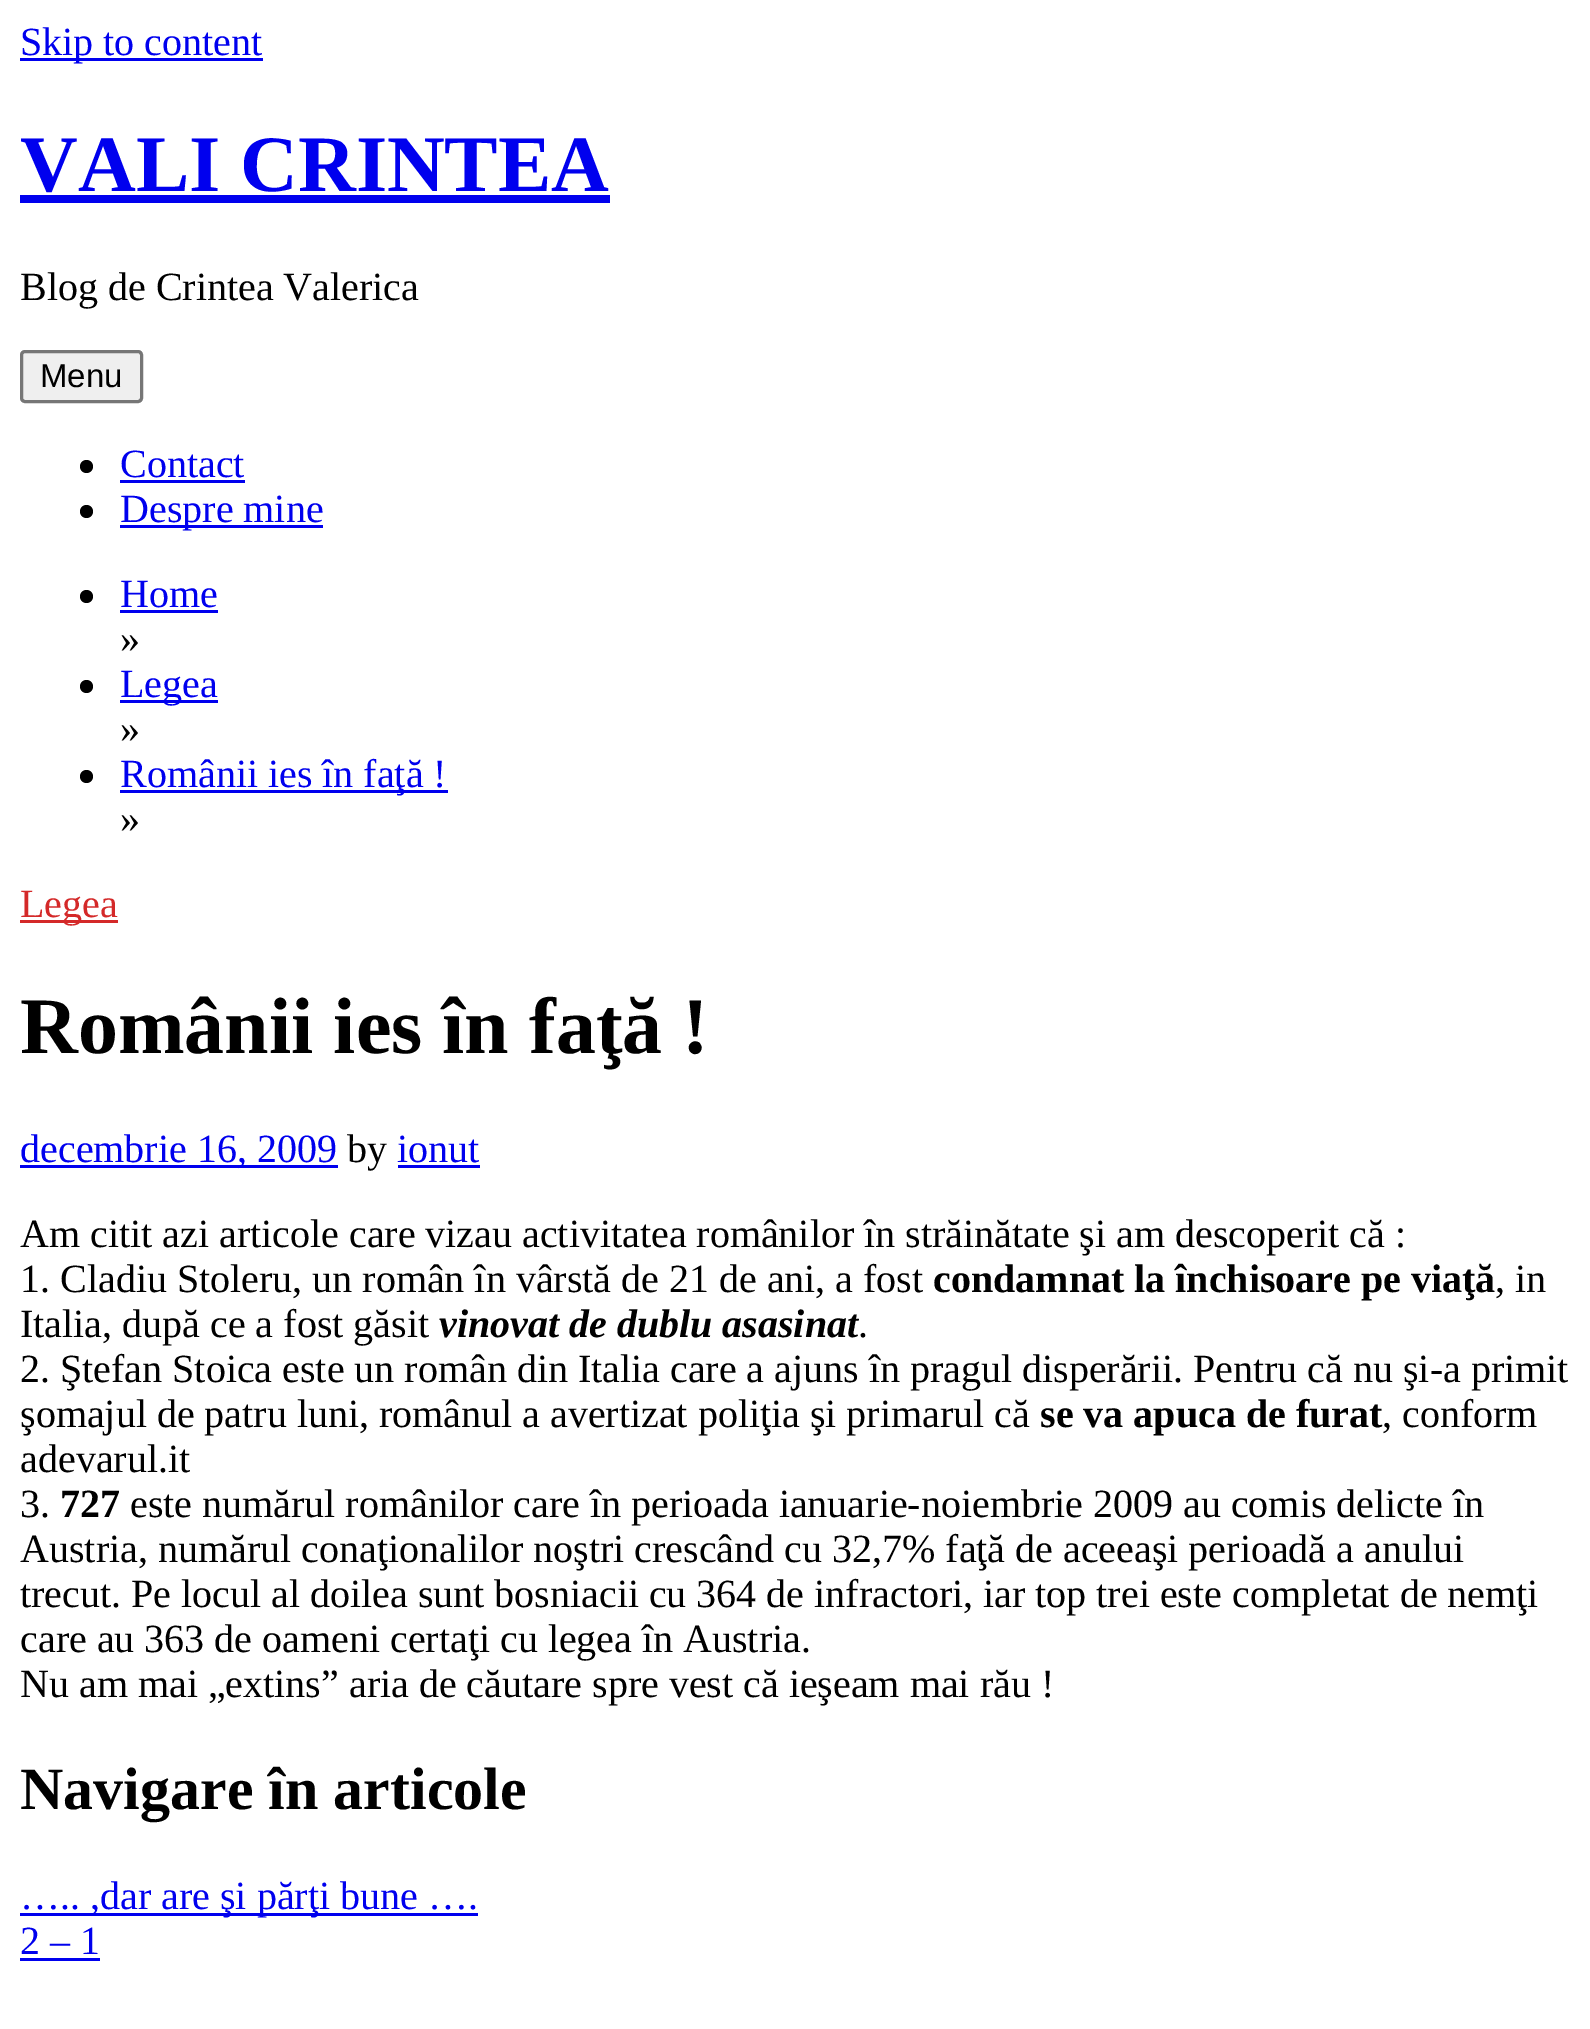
%!PS
<< /PageSize [1590 2029] >> setpagedevice
/rgb { 3 { 255 div 3 1 roll } repeat setrgbcolor } def
/font { [ exch dup neg 0 0 3 -1 roll 0 0 ] selectfont } def
/text { moveto show } def
/circle { newpath 0 360 arc closepath } def
/roundrect { 5 dict begin { /r /h /w /y /x } { exch def } forall
  x r add y moveto x w add y 2 copy h add r arct x w add y h add x 1 index r arct
  x y h add x y r arct x y 2 copy exch w add exch r arct closepath end } def
0 2029 translate 1 -1 scale
4 setmiterlimit
255 255 255 rgb
0 0 1590 2029 rectfill
0 0 238 rgb
20 58 243 3 rectfill
20 195 590 8 rectfill
239 239 239 rgb
21.5 351.5 120 50 3.5 roundrect gsave fill grestore
118 118 118 rgb
3 setlinewidth
stroke
0 0 0 rgb
86.5 466.5 6.5 circle fill
0 0 238 rgb
120 480 125 3 rectfill
0 0 0 rgb
86.5 511.5 6.5 circle fill
0 0 238 rgb
120 525 203 3 rectfill
0 0 0 rgb
86.5 596.5 6.5 circle fill
0 0 238 rgb
120 610 98 3 rectfill
0 0 0 rgb
86.5 686.5 6.5 circle fill
0 0 238 rgb
120 700 98 3 rectfill
0 0 0 rgb
86.5 776.5 6.5 circle fill
0 0 238 rgb
120 790 328 3 rectfill
212 41 41 rgb
20 920 98 3 rectfill
0 0 238 rgb
20 1165 318 3 rectfill
398 1165 82 3 rectfill
20 1913 458 3 rectfill
20 1958 80 3 rectfill
/LiberationSerif-Regular 40 font
(Skip to content) 20 55 text
/LiberationSerif-Bold 80 font
(VALI CRINTEA) 20 191 text
/LiberationSerif-Regular 40 font
0 0 0 rgb
(Blog de Crintea Valerica) 20 300 text
/LiberationSans-Regular 33 font
(Menu) 40 387 text
/LiberationSerif-Regular 40 font
0 0 238 rgb
(Contact) 120 477 text
(Despre mine) 120 522 text
(Home) 120 607 text
0 0 0 rgb
(») 120 652 text
0 0 238 rgb
(Legea) 120 697 text
0 0 0 rgb
(») 120 742 text
0 0 238 rgb
(Românii ies în faţă !) 120 787 text
0 0 0 rgb
(») 120 832 text
212 41 41 rgb
(Legea) 20 917 text
/LiberationSerif-Bold 80 font
0 0 0 rgb
(Românii ies în faţă !) 20 1053 text
/LiberationSerif-Regular 40 font
0 0 238 rgb
(decembrie 16, 2009) 20 1162 text
0 0 0 rgb
(by) 347 1162 text
0 0 238 rgb
(ionut) 397 1162 text
0 0 0 rgb
(Am citit azi articole care vizau activitatea românilor în străinătate şi am descoperit că :) 20 1247 text
(1. Cladiu Stoleru, un român în vârstă de 21 de ani, a fost) 20 1292 text
/LiberationSerif-Bold 40 font
(condamnat la închisoare pe viaţă) 933 1292 text
/LiberationSerif-Regular 40 font
(, in) 1495 1292 text
(Italia, după ce a fost găsit) 20 1337 text
/LiberationSerif-BoldItalic 40 font
(vinovat de dublu asasinat) 439 1337 text
/LiberationSerif-Regular 40 font
(.) 858 1337 text
(2. Ştefan Stoica este un român din Italia care a ajuns în pragul disperării. Pentru că nu şi-a primit) 20 1382 text
(şomajul de patru luni, românul a avertizat poliţia şi primarul că) 20 1427 text
/LiberationSerif-Bold 40 font
(se va apuca de furat) 1040 1427 text
/LiberationSerif-Regular 40 font
(, conform) 1382 1427 text
(adevarul.it) 20 1472 text
(3.) 20 1517 text
/LiberationSerif-Bold 40 font
(727) 60 1517 text
/LiberationSerif-Regular 40 font
(este numărul românilor care în perioada ianuarie-noiembrie 2009 au comis delicte în) 130 1517 text
(Austria, numărul conaţionalilor noştri crescând cu 32,7% faţă de aceeaşi perioadă a anului) 20 1562 text
(trecut. Pe locul al doilea sunt bosniacii cu 364 de infractori, iar top trei este completat de nemţi) 20 1607 text
(care au 363 de oameni certaţi cu legea în Austria.) 20 1652 text
(Nu am mai „extins” aria de căutare spre vest că ieşeam mai rău !) 20 1697 text
/LiberationSerif-Bold 60 font
(Navigare în articole) 20 1809 text
/LiberationSerif-Regular 40 font
0 0 238 rgb
(….. ,dar are şi părţi bune ….) 20 1909 text
(2 – 1) 20 1954 text
showpage
